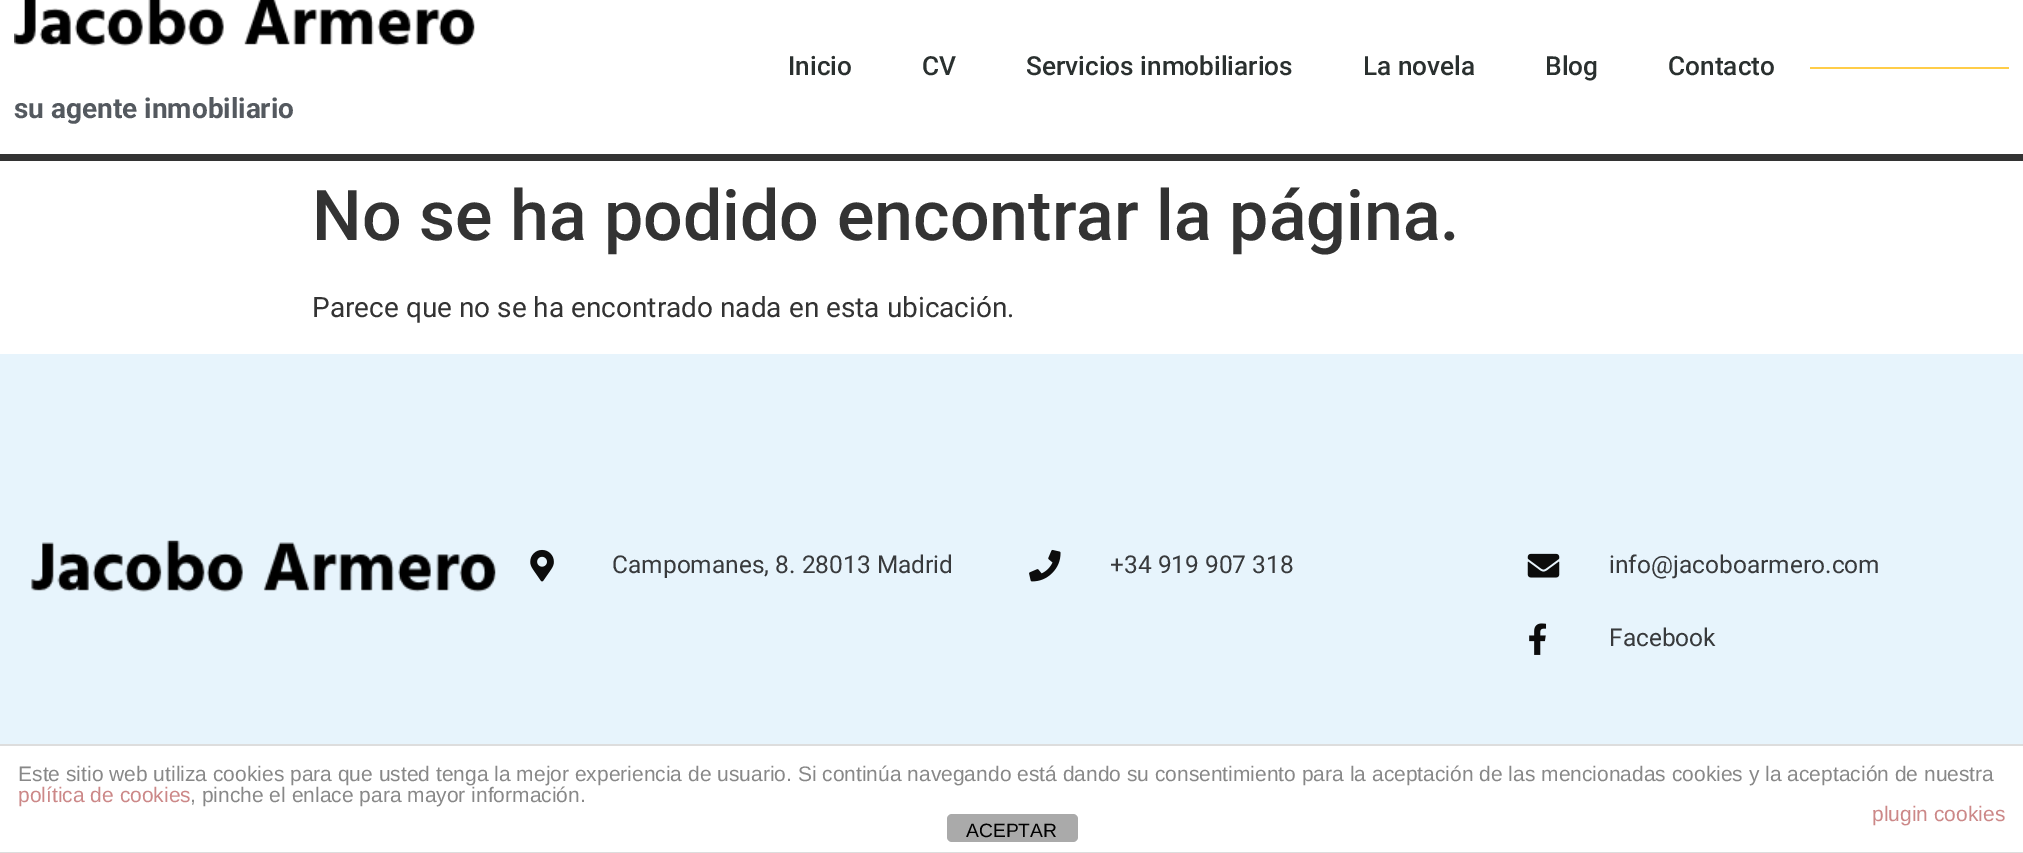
%!PS
<< /PageSize [2023 853] >> setpagedevice
/rgb { 3 { 255 div 3 1 roll } repeat setrgbcolor } def
/font { [ exch dup neg 0 0 3 -1 roll 0 0 ] selectfont } def
/text { moveto show } def
/roundrect { 5 dict begin { /r /h /w /y /x } { exch def } forall
  x r add y moveto x w add y 2 copy h add r arct x w add y h add x 1 index r arct
  x y h add x y r arct x y 2 copy exch w add exch r arct closepath end } def
/picture { 5 dict begin { /h /w /y /x /name } { exch def } forall
  gsave x y translate w h scale
  w h 8 [w 0 0 h 0 0] name (r) file false 3 colorimage grestore end } def
0 853 translate 1 -1 scale
4 setmiterlimit
255 255 255 rgb
0 0 2023 853 rectfill
51 51 51 rgb
0 154 2023 7 rectfill
255 205 72 rgb
1810 67 199 2 rectfill
(img_01.rgb) 14 0 461 46 picture
231 244 252 rgb
0 354 2023 390 rectfill
(img_02.rgb) 31 540 465 52 picture
(img_03.rgb) 530 549 24 33 picture
(img_04.rgb) 1029 549 32 33 picture
(img_05.rgb) 1527 553 33 25 picture
(img_06.rgb) 1529 623 18 32 picture
221 221 221 rgb
0 744 2023 2 rectfill
0 852 2023 1 rectfill
170 170 170 rgb
947 814 131 28 5 roundrect fill
/Roboto-Medium 26.25 font
42 48 47 rgb
(Inicio) 788 75 text
(CV) 922 75 text
(Servicios inmobiliarios) 1026 75 text
(La novela) 1363 75 text
(Blog) 1545 75 text
(Contacto) 1668 75 text
/Roboto-Bold 28 font
84 89 95 rgb
(su agente inmobiliario) 14 118 text
/Roboto-Medium 70 font
51 51 51 rgb
(No se ha podido encontrar la página.) 312 240 text
/Roboto-Regular 28 font
(Parece que no se ha encontrado nada en esta ubicación.) 312 317 text
/Roboto-Regular 24.5 font
56 58 60 rgb
(Campomanes, 8. 28013 Madrid) 612 573 text
(+34 919 907 318) 1110 573 text
(info@jacoboarmero.com) 1609 573 text
(Facebook) 1609 646 text
/LiberationSans-Regular 21 font
136 136 136 rgb
(Este sitio web utiliza cookies para que usted tenga la mejor experiencia de usuario. Si continúa navegando está dando su consentimiento para la aceptación de las mencionadas cookies y la aceptación de nuestra) 18 781 text
204 136 136 rgb
(política de cookies) 18 802 text
136 136 136 rgb
(, pinche el enlace para mayor información.) 190 802 text
204 136 136 rgb
(plugin cookies) 1872 821 text
/LiberationSans-Regular 19.25 font
0 0 0 rgb
(ACEPTAR) 966 837 text
showpage
